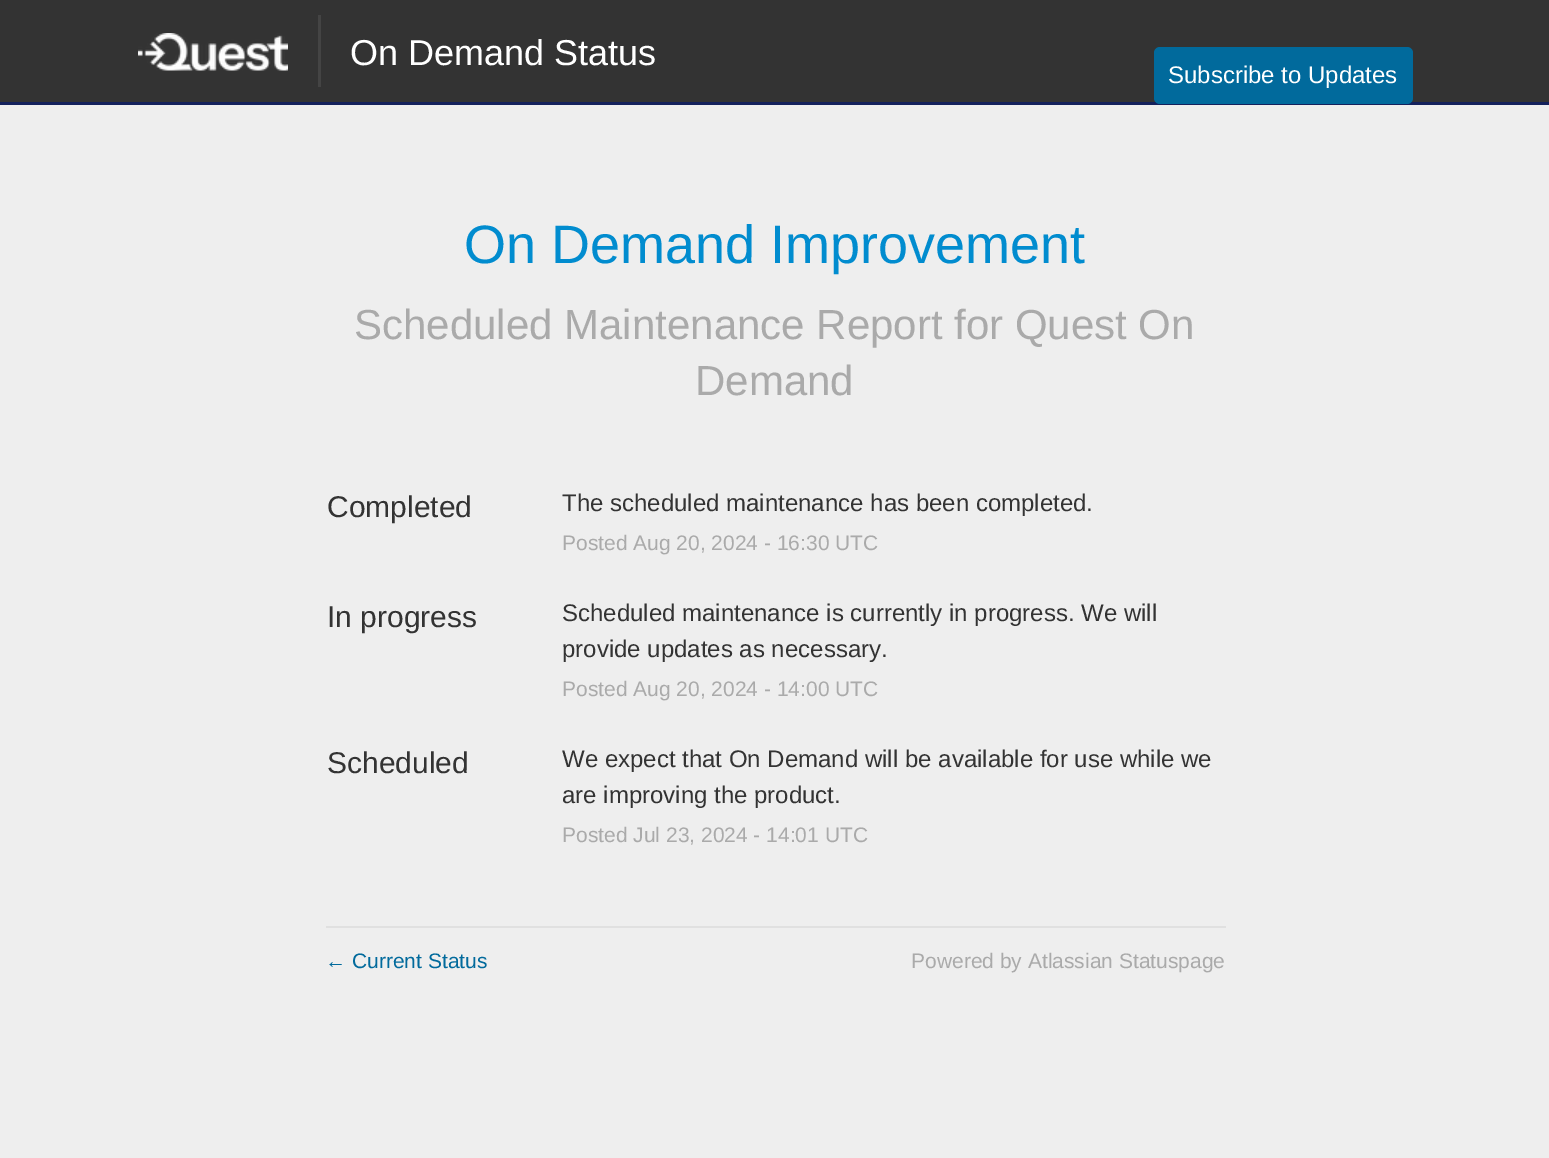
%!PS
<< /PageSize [1549 1158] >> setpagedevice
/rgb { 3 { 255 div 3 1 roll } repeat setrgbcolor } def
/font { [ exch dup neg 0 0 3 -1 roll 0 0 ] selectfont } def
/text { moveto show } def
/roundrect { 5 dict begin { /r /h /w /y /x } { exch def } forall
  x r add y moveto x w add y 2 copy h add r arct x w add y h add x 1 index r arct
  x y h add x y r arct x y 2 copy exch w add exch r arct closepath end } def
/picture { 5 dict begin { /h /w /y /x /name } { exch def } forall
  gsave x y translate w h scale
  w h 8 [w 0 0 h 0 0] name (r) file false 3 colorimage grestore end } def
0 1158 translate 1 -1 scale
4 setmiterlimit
238 238 238 rgb
0 0 1549 1158 rectfill
51 51 51 rgb
0 0 1549 102 rectfill
20 33 92 rgb
0 102 1549 3 rectfill
(img_01.rgb) 138 33 150 38 picture
68 68 68 rgb
318 15 3 72 rectfill
1 106 156 rgb
1154 47 259 57 6 roundrect fill
224 224 224 rgb
326 926 900 2 rectfill
/LiberationSans-Regular 36 font
255 255 255 rgb
(On Demand Status) 350 65 text
/LiberationSans-Regular 24 font
(Subscribe to Updates) 1168 83 text
/LiberationSans-Regular 54 font
1 140 207 rgb
(On Demand Improvement) 464 263 text
/LiberationSans-Regular 42 font
170 170 170 rgb
(Scheduled Maintenance Report for Quest On) 354 339 text
(Demand) 695 395 text
/LiberationSans-Regular 30 font
51 51 51 rgb
(Completed) 327 517 text
/LiberationSans-Regular 24 font
(The scheduled maintenance has been completed.) 562 511 text
/LiberationSans-Regular 21 font
170 170 170 rgb
(Posted Aug 20, 2024 - 16:30 UTC) 562 550 text
/LiberationSans-Regular 30 font
51 51 51 rgb
(In progress) 327 627 text
/LiberationSans-Regular 24 font
(Scheduled maintenance is currently in progress. We will) 562 621 text
(provide updates as necessary.) 562 657 text
/LiberationSans-Regular 21 font
170 170 170 rgb
(Posted Aug 20, 2024 - 14:00 UTC) 562 696 text
/LiberationSans-Regular 30 font
51 51 51 rgb
(Scheduled) 327 773 text
/LiberationSans-Regular 24 font
(We expect that On Demand will be available for use while we) 562 767 text
(are improving the product.) 562 803 text
/LiberationSans-Regular 21 font
170 170 170 rgb
(Posted Jul 23, 2024 - 14:01 UTC) 562 842 text
1 106 156 rgb
(← Current Status) 325 968 text
170 170 170 rgb
(Powered by Atlassian Statuspage) 911 968 text
showpage
